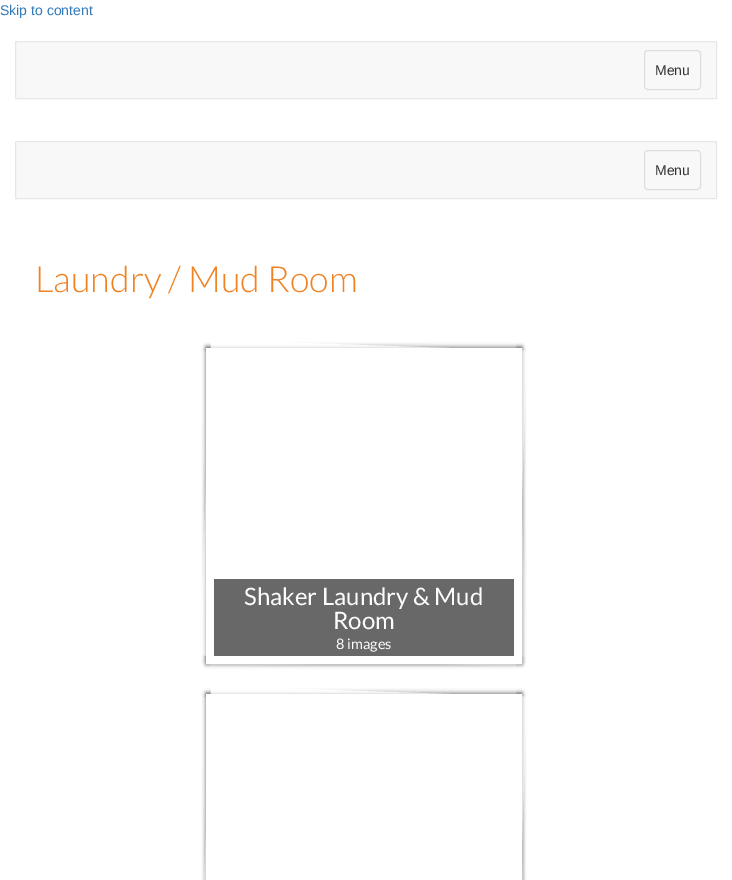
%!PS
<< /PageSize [732 880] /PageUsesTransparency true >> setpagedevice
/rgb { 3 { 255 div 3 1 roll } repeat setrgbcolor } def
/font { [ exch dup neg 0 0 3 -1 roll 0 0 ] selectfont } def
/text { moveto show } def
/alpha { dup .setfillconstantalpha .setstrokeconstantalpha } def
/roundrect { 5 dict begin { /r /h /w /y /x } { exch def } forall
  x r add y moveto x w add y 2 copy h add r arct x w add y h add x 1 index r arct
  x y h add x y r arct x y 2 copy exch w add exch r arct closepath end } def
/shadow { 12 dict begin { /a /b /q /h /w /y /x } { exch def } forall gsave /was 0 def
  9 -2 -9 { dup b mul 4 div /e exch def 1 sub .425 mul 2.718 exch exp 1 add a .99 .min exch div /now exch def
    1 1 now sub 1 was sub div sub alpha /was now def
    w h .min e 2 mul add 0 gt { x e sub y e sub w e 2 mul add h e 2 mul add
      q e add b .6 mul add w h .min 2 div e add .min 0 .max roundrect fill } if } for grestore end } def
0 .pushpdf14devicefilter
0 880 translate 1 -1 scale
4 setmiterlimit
255 255 255 rgb
0 0 732 880 rectfill
248 248 248 rgb
15.5 41.5 moveto 701 0 rlineto 0 57 rlineto -701 0 rlineto closepath gsave fill grestore
231 231 231 rgb
stroke
221 221 221 rgb
644.5 50.5 56 39 3.5 roundrect stroke
248 248 248 rgb
15.5 141.5 moveto 701 0 rlineto 0 57 rlineto -701 0 rlineto closepath gsave fill grestore
231 231 231 rgb
stroke
221 221 221 rgb
644.5 150.5 56 39 3.5 roundrect stroke
gsave
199 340 moveto 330 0 rlineto 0 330 rlineto -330 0 rlineto closepath 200 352 moveto 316 -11 rlineto 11 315.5 rlineto -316 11 rlineto closepath eoclip newpath
0 0 0 rgb
206 347 316 316 0 2 0.3 shadow
grestore
255 255 255 rgb
8 setlinewidth
204 355.5 moveto 308 -10.5 rlineto 11 307.5 rlineto -308 11 rlineto closepath stroke
gsave
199 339 moveto 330 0 rlineto 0 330 rlineto -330 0 rlineto closepath 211 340 moveto 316 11 rlineto -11 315.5 rlineto -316 -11 rlineto closepath eoclip newpath
0 0 0 rgb
206 346 316 316 0 2 0.3 shadow
grestore
215 344 moveto 308 10.5 rlineto -11 308 rlineto -308 -11 rlineto closepath stroke
gsave
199 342 moveto 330 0 rlineto 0 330 rlineto -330 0 rlineto closepath 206 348 moveto 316 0 rlineto 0 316 rlineto -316 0 rlineto closepath eoclip newpath
0 0 0 rgb
206 349 316 316 0 2 0.4 shadow
grestore
210 352 308 308 rectstroke
104 104 104 rgb
214 579 300 77 rectfill
gsave
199 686 moveto 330 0 rlineto 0 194 rlineto -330 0 rlineto closepath 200 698 moveto 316 -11 rlineto 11 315.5 rlineto -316 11 rlineto closepath eoclip newpath
0 0 0 rgb
206 693 316 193 0 2 0.3 shadow
grestore
255 255 255 rgb
204 701.5 moveto 308 -10.5 rlineto 11 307.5 rlineto -308 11 rlineto closepath stroke
gsave
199 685 moveto 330 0 rlineto 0 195 rlineto -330 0 rlineto closepath 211 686 moveto 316 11 rlineto -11 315.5 rlineto -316 -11 rlineto closepath eoclip newpath
0 0 0 rgb
206 692 316 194 0 2 0.3 shadow
grestore
215 690 moveto 308 10.5 rlineto -11 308 rlineto -308 -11 rlineto closepath stroke
gsave
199 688 moveto 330 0 rlineto 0 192 rlineto -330 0 rlineto closepath 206 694 moveto 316 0 rlineto 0 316 rlineto -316 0 rlineto closepath eoclip newpath
0 0 0 rgb
206 695 316 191 0 2 0.4 shadow
grestore
210 698 308 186 rectstroke
/LiberationSans-Regular 14 font
51 122 183 rgb
(Skip to content) 0 15 text
51 51 51 rgb
(Menu) 655 75 text
(Menu) 655 175 text
/Lato-Light 36 font
239 130 35 rgb
(Laundry / Mud Room) 35 292 text
/Lato-Regular 24 font
253 251 251 rgb
(Shaker Laundry & Mud) 244 605 text
(Room) 333 629 text
/Lato-Regular 14.5 font
(8 images) 336 649 text
.poppdf14devicefilter showpage
